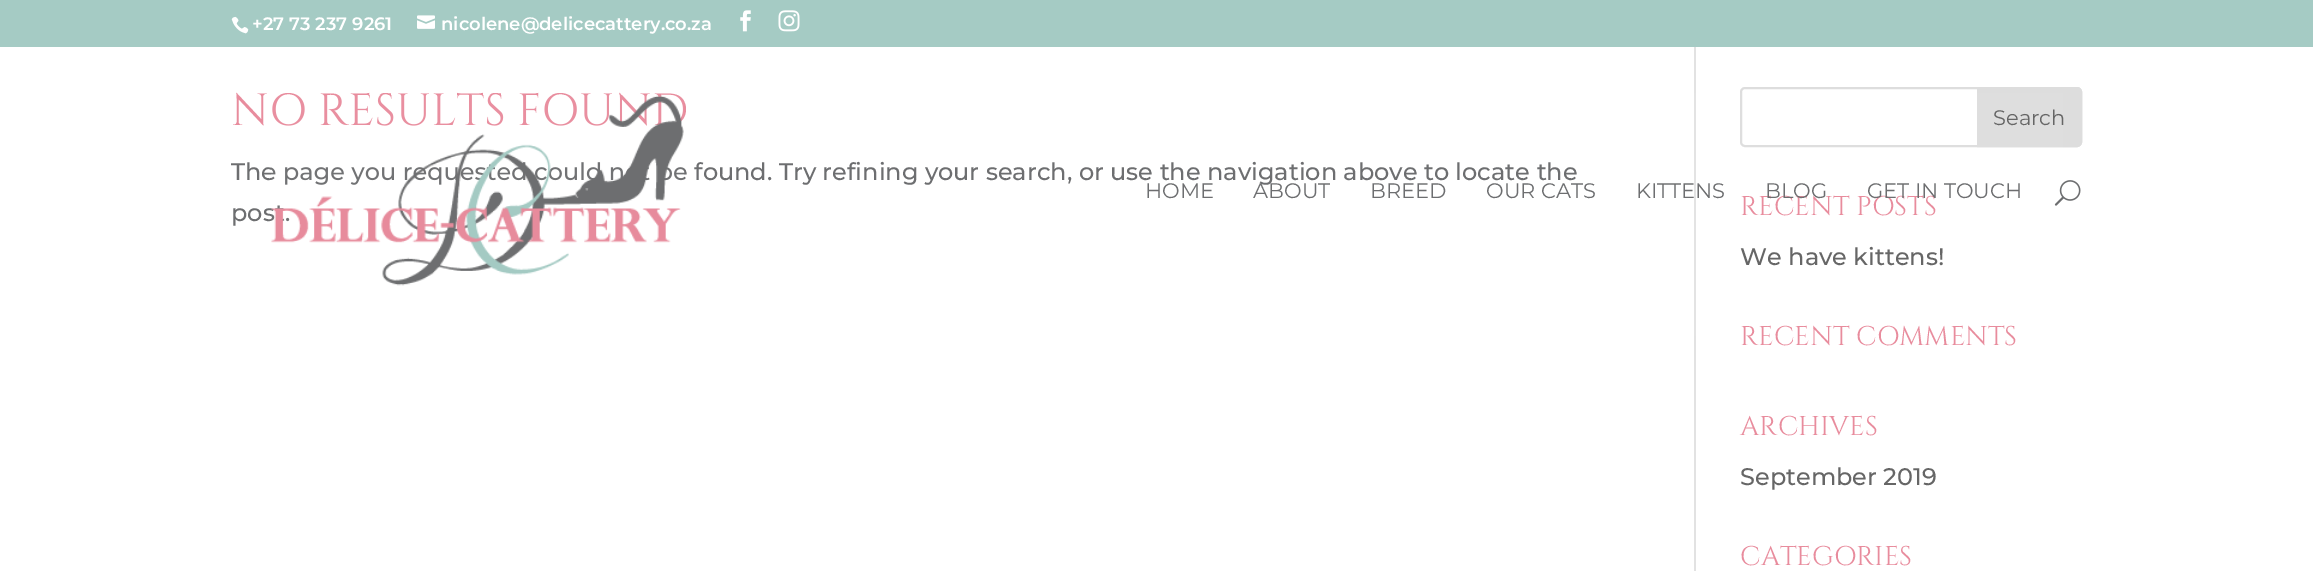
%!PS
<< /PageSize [2313 571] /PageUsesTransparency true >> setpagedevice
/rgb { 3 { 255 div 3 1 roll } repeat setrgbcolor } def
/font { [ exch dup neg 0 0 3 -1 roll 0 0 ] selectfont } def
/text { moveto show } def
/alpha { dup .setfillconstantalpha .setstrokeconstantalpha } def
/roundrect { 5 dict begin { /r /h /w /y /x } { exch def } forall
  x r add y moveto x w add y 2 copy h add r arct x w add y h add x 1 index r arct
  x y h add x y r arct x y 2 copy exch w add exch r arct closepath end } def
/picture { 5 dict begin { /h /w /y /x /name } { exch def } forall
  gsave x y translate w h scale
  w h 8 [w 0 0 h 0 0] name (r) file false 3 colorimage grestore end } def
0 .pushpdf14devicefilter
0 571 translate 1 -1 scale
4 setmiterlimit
255 255 255 rgb
0 0 2313 571 rectfill
165 203 196 rgb
0 0 2313 47 rectfill
(img_01.rgb) 231 16 18 18 picture
(img_02.rgb) 417 15 18 14 picture
(img_03.rgb) 740 10 11 22 picture
(img_04.rgb) 778 10 22 22 picture
226 226 226 rgb
1694 47 2 524 rectfill
221 221 221 rgb
2 setlinewidth
1741 88 340 58 4 roundrect stroke
1978 88 moveto 99 0 rlineto 2 0 4 2 4 4 rcurveto 0 50 rlineto 0 2 -2 4 -4 4 rcurveto -99 0 rlineto closepath gsave fill grestore
stroke
0.03 alpha
255 255 255 rgb
231 93 1832 243 rectfill
1 alpha
(img_06.rgb) 2054 180 27 26 picture
/Montserrat-SemiBold 18 font
(+27 73 237 9261) 252 30 text
(nicolene@delicecattery.co.za) 441 30 text
/Cinzel-Regular 45 font
232 140 157 rgb
(NO RESULTS FOUND) 231 125 text
/Montserrat-Medium 24 font
109 110 112 rgb
(The page you reque) 231 180 text
(ed coul) 496 180 text
(e found. Try refining your search, or use the navigation above to locate the) 673 180 text
(post.) 231 221 text
/Montserrat-Regular 21 font
102 102 102 rgb
(Search) 1993 125 text
/Cinzel-Regular 27 font
232 140 157 rgb
(RECENT POSTS) 1740 215 text
/Montserrat-Medium 24 font
102 102 102 rgb
(We have kittens!) 1740 265 text
/Cinzel-Regular 27 font
232 140 157 rgb
(RECENT COMMENTS) 1740 345 text
(ARCHIVES) 1740 435 text
/Montserrat-Medium 24 font
102 102 102 rgb
(September 2019) 1740 485 text
/Cinzel-Regular 27 font
232 140 157 rgb
(CATEGORIES) 1740 565 text
(img_05.rgb) 271 95 413 191 picture
/Montserrat-Regular 21 font
109 110 112 rgb
(HOME) 1145 198 text
(ABOUT) 1253 198 text
(BREED) 1370 198 text
(OUR CATS) 1486 198 text
(KITTENS) 1636 198 text
(BLOG) 1765 198 text
(GET IN TOUCH) 1867 198 text
.poppdf14devicefilter showpage
